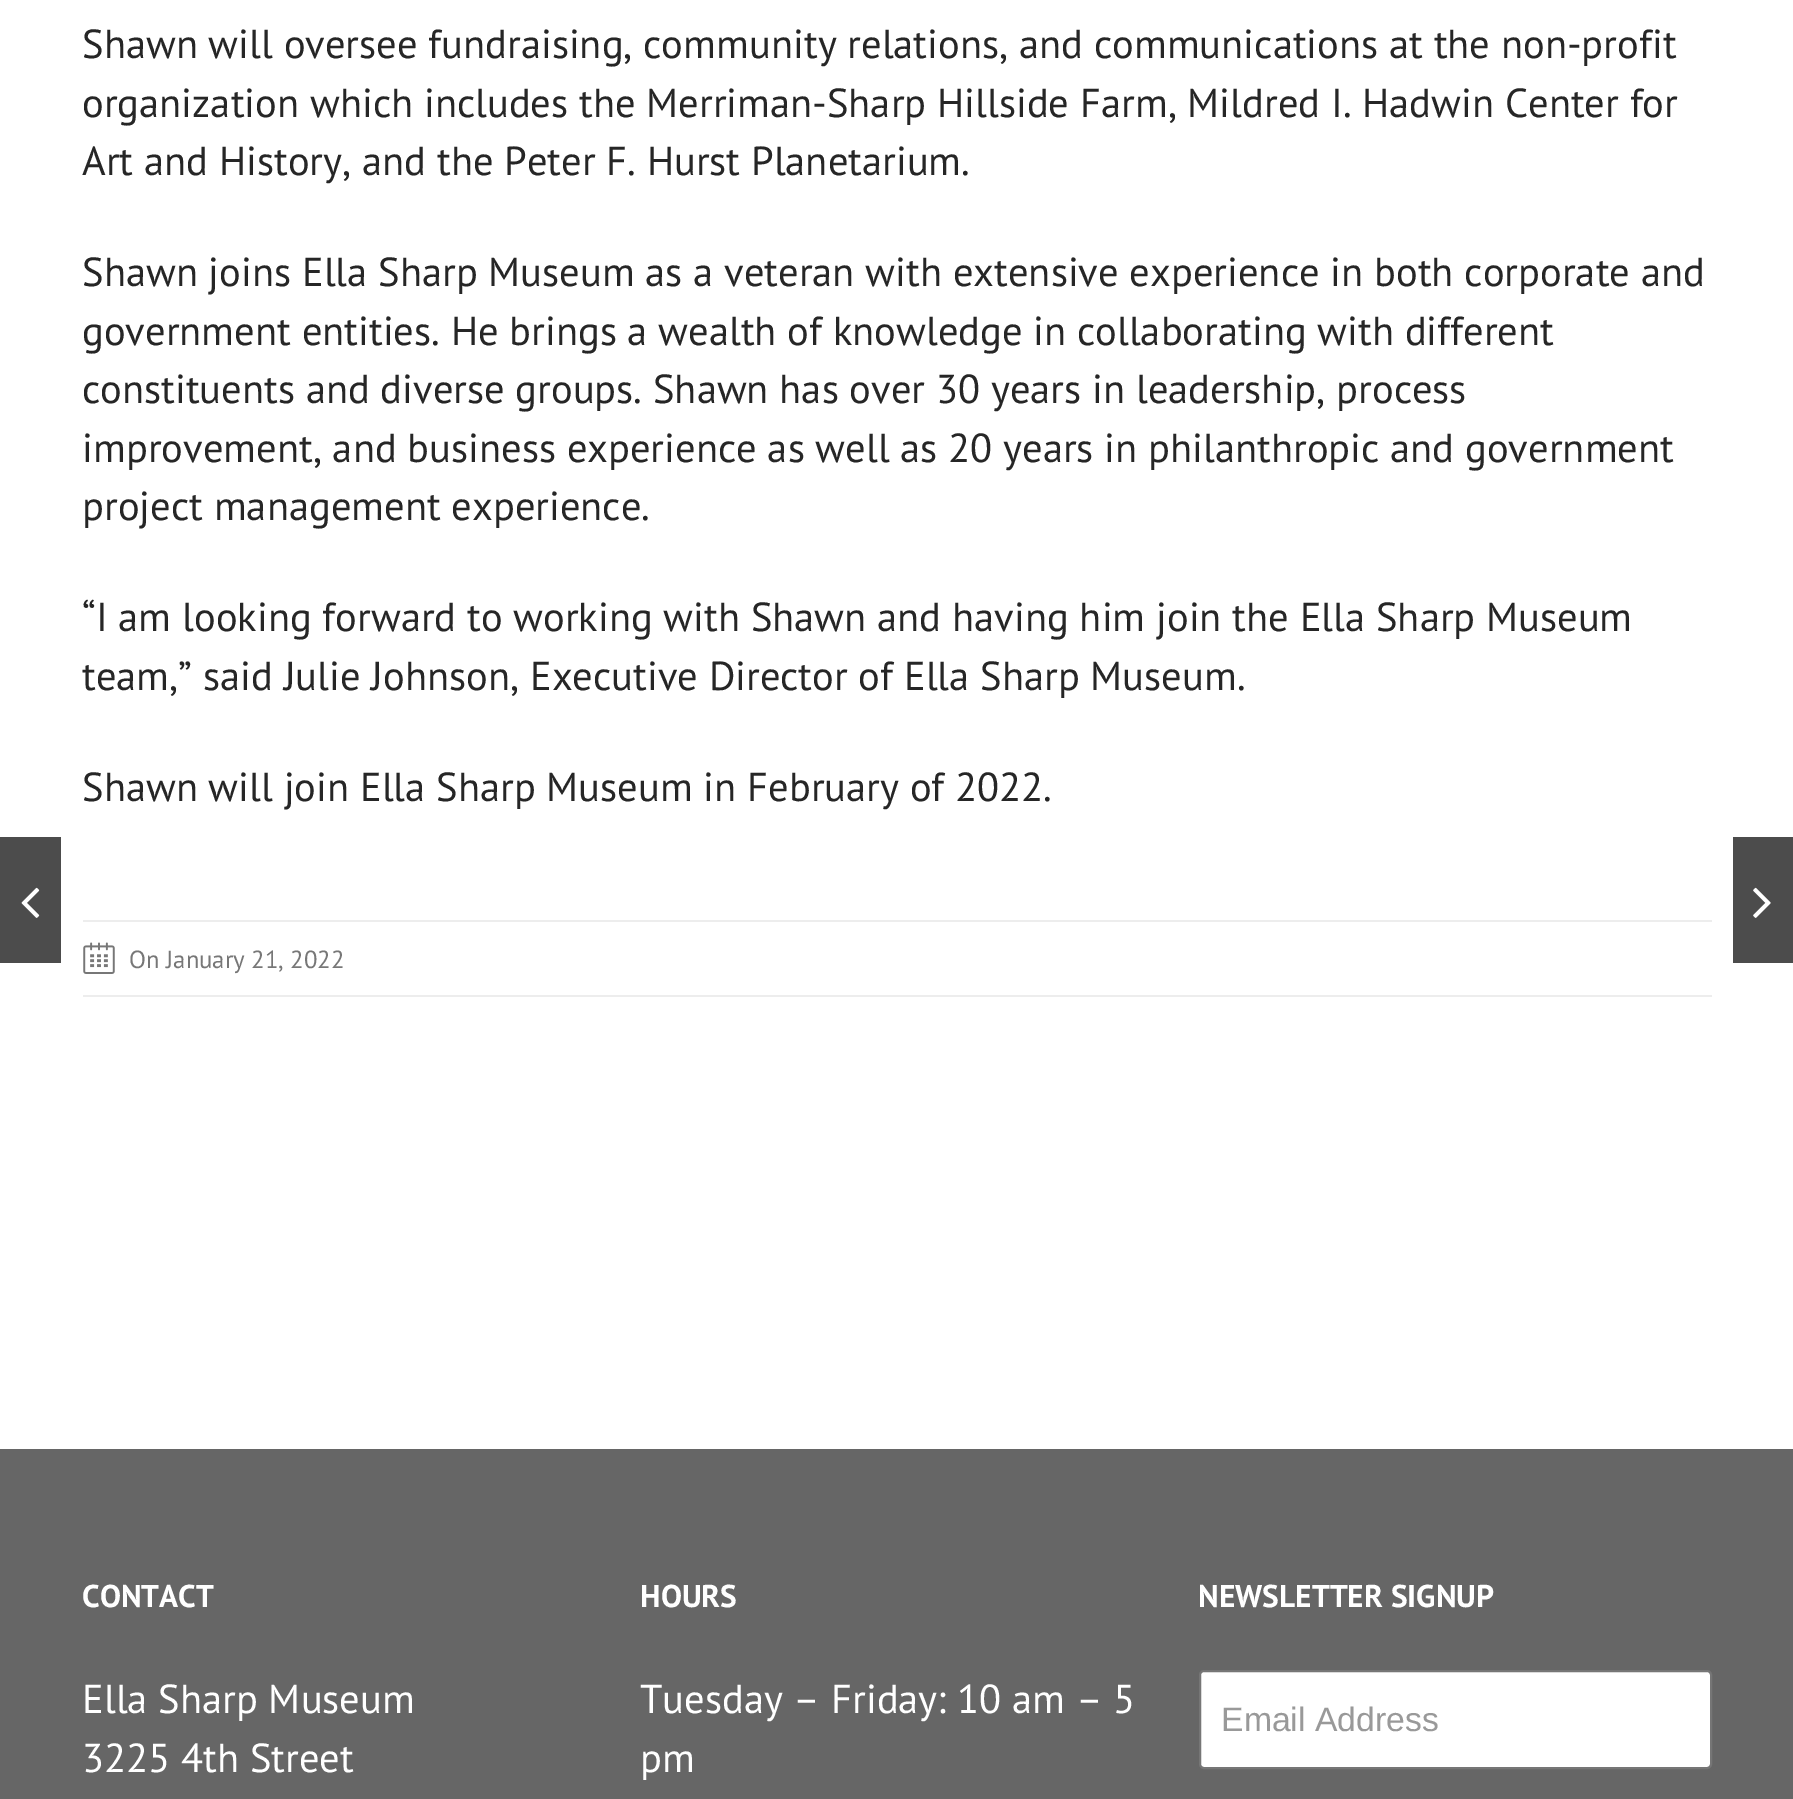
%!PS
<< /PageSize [1793 1799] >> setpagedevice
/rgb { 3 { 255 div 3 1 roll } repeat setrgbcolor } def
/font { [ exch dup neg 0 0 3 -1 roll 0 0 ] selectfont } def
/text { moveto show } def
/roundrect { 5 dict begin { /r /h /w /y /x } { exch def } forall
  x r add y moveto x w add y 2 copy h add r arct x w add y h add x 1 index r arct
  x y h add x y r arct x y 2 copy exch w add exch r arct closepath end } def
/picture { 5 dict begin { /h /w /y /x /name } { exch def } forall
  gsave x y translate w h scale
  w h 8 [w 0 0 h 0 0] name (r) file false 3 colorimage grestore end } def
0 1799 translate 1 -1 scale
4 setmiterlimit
255 255 255 rgb
0 0 1793 1799 rectfill
237 237 237 rgb
83 920 1629 2 rectfill
83 995 1629 2 rectfill
(img_01.rgb) 83 942 32 32 picture
76 76 76 rgb
0 837 61 126 rectfill
(img_02.rgb) 21 887 19 31 picture
1733 837 60 126 rectfill
(img_03.rgb) 1753 887 18 31 picture
102 102 102 rgb
0 1449 1793 350 rectfill
255 255 255 rgb
1200 1671 511 97 4 roundrect gsave fill grestore
118 118 118 rgb
2 setlinewidth
stroke
/PTSans-Regular 40.5 font
38 38 38 rgb
(Shawn will oversee fundraising, community relations, and communications at the non-profit) 82 58 text
(organization which includes the Merriman-Sharp Hillside Farm, Mildred I. Hadwin Center for) 82 117 text
(Art and History, and the Peter F. Hurst Planetarium.) 82 175 text
(Shawn joins Ella Sharp Museum as a veteran with extensive experience in both corporate and) 82 286 text
(government entities. He brings a wealth of knowledge in collaborating with different) 82 345 text
(constituents and diverse groups. Shawn has over 30 years in leadership, process) 82 403 text
(improvement, and business experience as well as 20 years in philanthropic and government) 82 462 text
(project management experience.) 82 520 text
(“I am looking forward to working with Shawn and having him join the Ella Sharp Museum) 82 631 text
(team,” said Julie Johnson, Executive Director of Ella Sharp Museum.) 82 690 text
(Shawn will join Ella Sharp Museum in February of 2022.) 82 801 text
/PTSans-Regular 24.75 font
119 119 119 rgb
(On January 21, 2022) 129 968 text
/PTSans-Bold 31.5 font
255 255 255 rgb
(CONTACT) 82 1607 text
/PTSans-Regular 40.5 font
(Ella Sharp Museum) 82 1713 text
(3225 4th Street) 82 1772 text
/PTSans-Bold 31.5 font
(HOURS) 640 1607 text
/PTSans-Regular 40.5 font
(Tuesday – Friday: 10 am – 5) 640 1713 text
(pm) 640 1772 text
/PTSans-Bold 31.5 font
(NEWSLETTER SIGNUP) 1198 1607 text
/LiberationSans-Regular 33.75 font
153 153 153 rgb
(Email Address) 1221 1731 text
showpage
